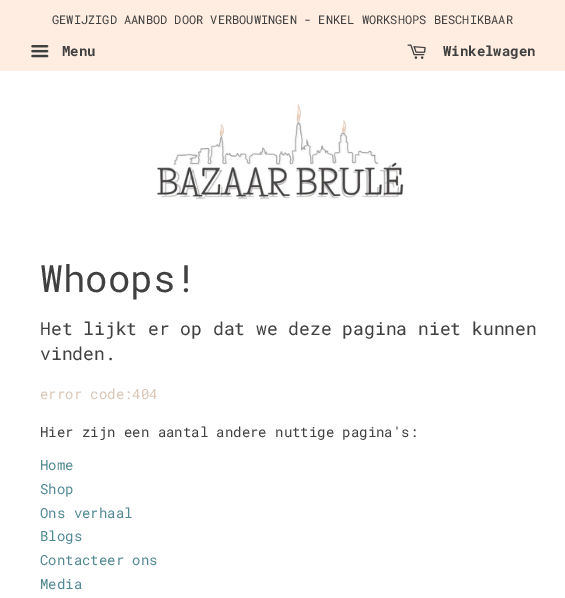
%!PS
<< /PageSize [565 598] >> setpagedevice
/rgb { 3 { 255 div 3 1 roll } repeat setrgbcolor } def
/font { [ exch dup neg 0 0 3 -1 roll 0 0 ] selectfont } def
/text { moveto show } def
/picture { 5 dict begin { /h /w /y /x /name } { exch def } forall
  gsave x y translate w h scale
  w h 8 [w 0 0 h 0 0] name (r) file false 3 colorimage grestore end } def
0 598 translate 1 -1 scale
4 setmiterlimit
255 255 255 rgb
0 0 565 598 rectfill
255 237 225 rgb
0 0 565 71 rectfill
(img_01.rgb) 31 45 18 13 picture
(img_02.rgb) 407 44 19 15 picture
(img_03.rgb) 157 104 247 96 picture
/RobotoMono-Regular 12 font
64 64 64 rgb
(GEWIJZIGD AANBOD DOOR VERBOUWINGEN - ENKEL WORKSHOPS BESCHIKBAAR) 52 24 text
/RobotoMono-Bold 14 font
(Menu) 62 56 text
(Winkelwagen) 443 56 text
/RobotoMono-Regular 37.5 font
(Whoops!) 40 292 text
/RobotoMono-Regular 18 font
(Het lijkt er op dat we deze pagina niet kunnen) 40 335 text
(vinden.) 40 360 text
/RobotoMono-Regular 14 font
218 198 181 rgb
(error code:404) 40 399 text
64 64 64 rgb
(Hier zijn een aantal andere nuttige pagina's:) 40 437 text
80 137 145 rgb
(Home) 40 470 text
(Shop) 40 494 text
(Ons verhaal) 40 518 text
(Blogs) 40 541 text
(Contacteer ons) 40 565 text
(Media) 40 589 text
showpage
